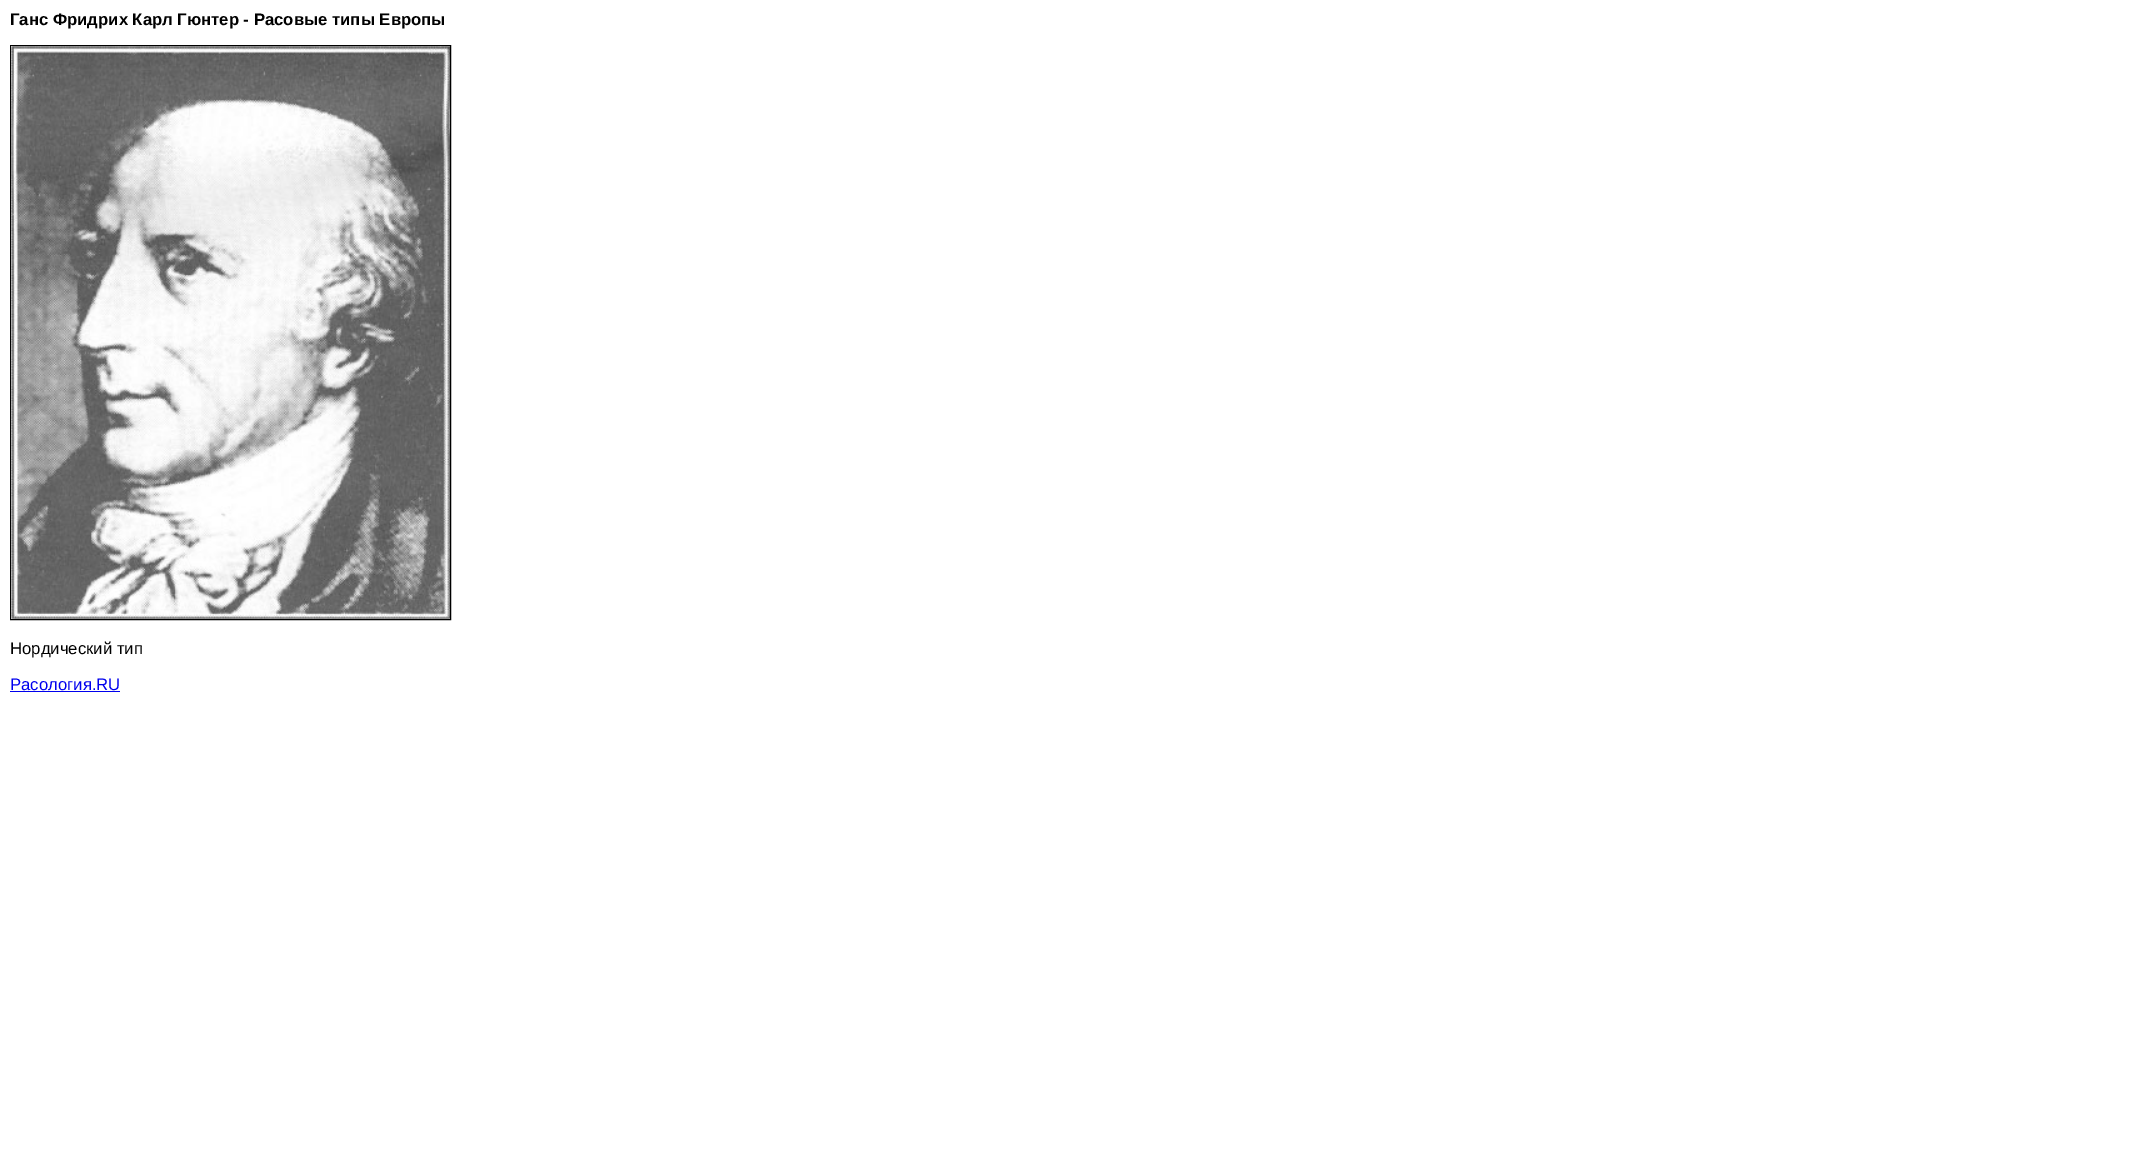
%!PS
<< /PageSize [2138 1163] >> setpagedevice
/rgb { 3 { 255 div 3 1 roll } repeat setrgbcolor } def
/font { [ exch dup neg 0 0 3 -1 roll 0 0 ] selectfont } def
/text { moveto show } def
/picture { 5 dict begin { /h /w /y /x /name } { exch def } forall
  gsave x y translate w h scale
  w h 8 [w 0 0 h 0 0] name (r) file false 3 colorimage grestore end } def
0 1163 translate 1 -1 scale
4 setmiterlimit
255 255 255 rgb
0 0 2138 1163 rectfill
0 0 0 rgb
10.5 45.5 440 574 rectstroke
(img_01.rgb) 11 46 439 573 picture
0 0 238 rgb
10 691 110 1 rectfill
/LiberationSans-Bold 16.7 font
0 0 0 rgb
(Ганс Фридрих Карл Гюнтер - Расовые типы Европы) 10 25 text
/LiberationSans-Regular 16.7 font
(Нордический тип) 10 654 text
0 0 238 rgb
(Расология.RU) 10 690 text
showpage
